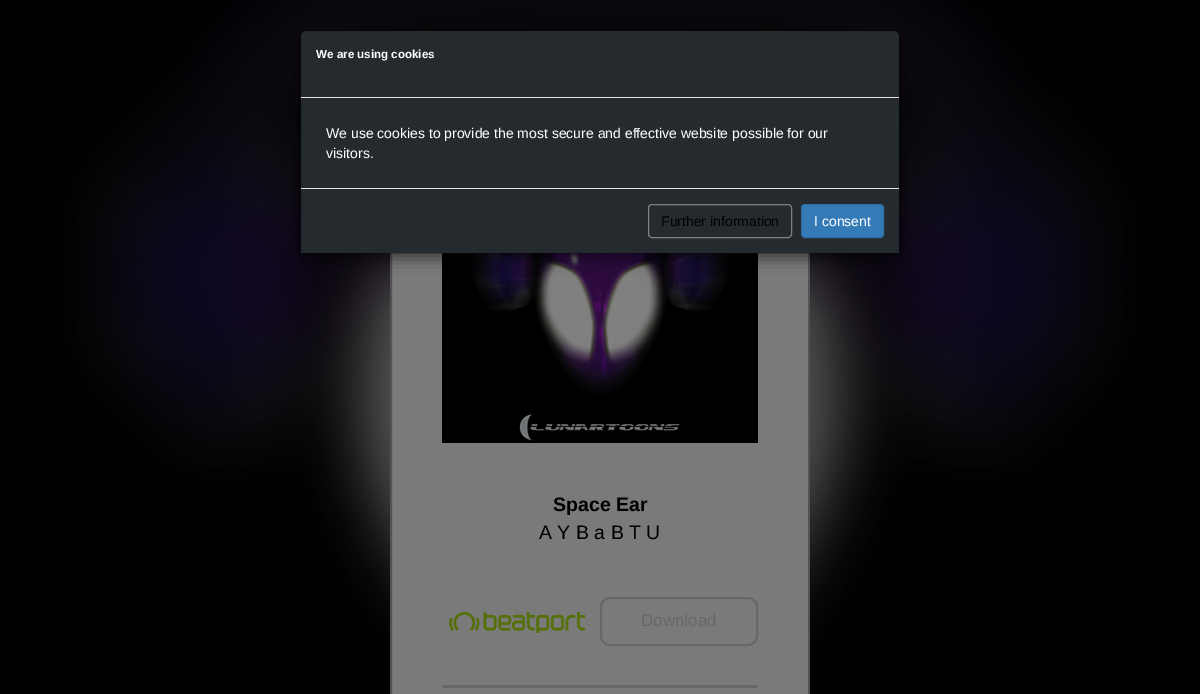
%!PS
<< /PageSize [1200 694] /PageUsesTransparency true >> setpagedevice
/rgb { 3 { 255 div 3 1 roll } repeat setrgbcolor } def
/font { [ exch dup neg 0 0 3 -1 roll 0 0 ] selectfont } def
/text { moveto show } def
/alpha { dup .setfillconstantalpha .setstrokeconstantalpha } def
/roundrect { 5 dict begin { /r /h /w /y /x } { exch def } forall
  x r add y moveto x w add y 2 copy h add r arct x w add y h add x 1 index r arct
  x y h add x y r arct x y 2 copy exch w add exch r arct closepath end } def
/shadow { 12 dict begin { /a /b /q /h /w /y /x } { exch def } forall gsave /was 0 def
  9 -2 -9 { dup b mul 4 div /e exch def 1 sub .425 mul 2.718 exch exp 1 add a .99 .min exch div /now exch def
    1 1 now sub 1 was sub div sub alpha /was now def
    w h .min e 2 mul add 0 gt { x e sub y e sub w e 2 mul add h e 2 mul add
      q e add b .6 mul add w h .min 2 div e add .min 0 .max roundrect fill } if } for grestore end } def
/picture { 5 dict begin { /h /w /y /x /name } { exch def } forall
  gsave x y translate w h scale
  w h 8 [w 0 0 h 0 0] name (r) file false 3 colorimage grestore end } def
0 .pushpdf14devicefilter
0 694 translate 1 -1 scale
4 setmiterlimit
0 0 0 rgb
0 0 1200 694 rectfill
(img_01.rgb) 52 0 1097 694 picture
122 122 122 rgb
390 253 420 441 rectfill
0.32 alpha
0 0 0 rgb
2 setlinewidth
391 101 418 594 rectstroke
1 alpha
(img_02.rgb) 442 253 316 190 picture
300 35 600 224 6 7.5 0.5 shadow
37 42 46 rgb
301 31 598 222 5 roundrect fill
0.2 alpha
0 0 0 rgb
1 setlinewidth
300.5 30.5 599 223 5.5 roundrect stroke
1 alpha
229 229 229 rgb
301 97 598 1 rectfill
37 42 46 rgb
301 249 598 4 rectfill
229 229 229 rgb
301 188 598 1 rectfill
128 128 128 rgb
648.5 204.5 143 33 3.5 roundrect stroke
51 122 183 rgb
801.5 204.5 82 33 3.5 roundrect gsave fill grestore
46 109 164 rgb
stroke
(img_03.rgb) 449 612 136 21 picture
103 103 103 rgb
2 setlinewidth
601 598 156 47 9 roundrect stroke
442 685 316 3 rectfill
/LiberationSans-Bold 11.6 font
255 255 255 rgb
(We are using cookies) 316 58 text
/LiberationSans-Regular 14 font
(We use cookies to provide the most secure and effective website possible for our) 326 138 text
(visitors.) 326 158 text
0 0 0 rgb
(Further information) 661 226 text
255 255 255 rgb
(I consent) 814 226 text
/LiberationSans-Bold 19.5 font
0 0 0 rgb
(Space Ear) 553 511 text
/LiberationSans-Regular 19.5 font
(A Y B a B T U) 539 539 text
/LiberationSans-Regular 17 font
103 103 103 rgb
(Download) 641 626 text
.poppdf14devicefilter showpage
